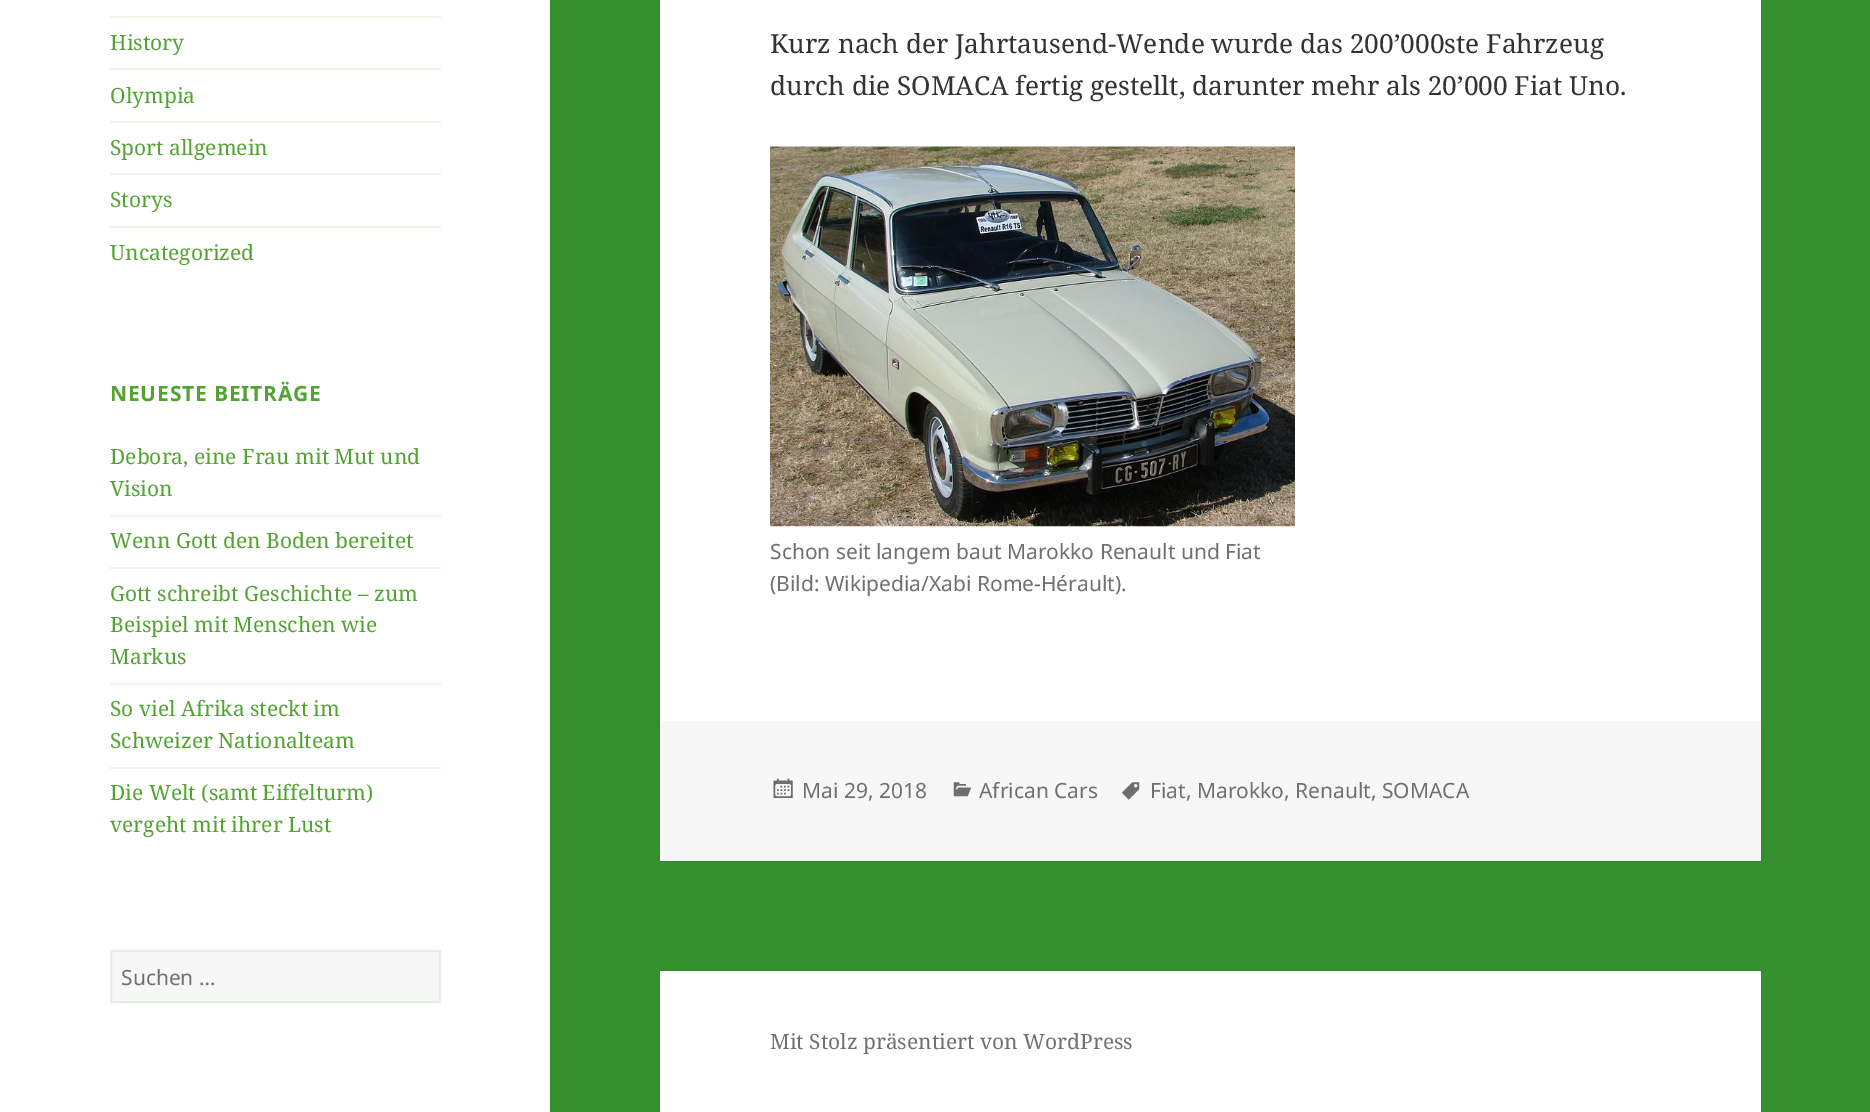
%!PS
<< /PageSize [1870 1112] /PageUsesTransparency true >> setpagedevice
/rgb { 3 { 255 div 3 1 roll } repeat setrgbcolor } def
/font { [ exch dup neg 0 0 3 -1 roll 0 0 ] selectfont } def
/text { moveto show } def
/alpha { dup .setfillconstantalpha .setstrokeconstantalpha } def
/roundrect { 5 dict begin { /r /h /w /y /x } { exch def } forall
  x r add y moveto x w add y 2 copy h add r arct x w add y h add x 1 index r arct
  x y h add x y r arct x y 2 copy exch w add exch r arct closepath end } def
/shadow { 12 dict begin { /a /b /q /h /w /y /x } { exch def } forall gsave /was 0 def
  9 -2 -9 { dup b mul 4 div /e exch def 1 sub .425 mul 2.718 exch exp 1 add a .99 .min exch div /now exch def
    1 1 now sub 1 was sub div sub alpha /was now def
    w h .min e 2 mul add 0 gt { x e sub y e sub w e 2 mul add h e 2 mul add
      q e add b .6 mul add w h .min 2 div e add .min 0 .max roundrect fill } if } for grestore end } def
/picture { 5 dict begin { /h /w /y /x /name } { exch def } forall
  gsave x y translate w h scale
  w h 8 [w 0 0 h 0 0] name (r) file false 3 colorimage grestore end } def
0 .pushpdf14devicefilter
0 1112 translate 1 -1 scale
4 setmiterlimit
53 145 45 rgb
0 0 1870 1112 rectfill
0 0 0 rgb
0 0 550 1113 0 1 0.15 shadow
255 255 255 rgb
0 0 550 1112 rectfill
238 246 235 rgb
110 16 331 2 rectfill
110 68 331 2 rectfill
110 121 331 2 rectfill
110 173 331 2 rectfill
110 226 331 2 rectfill
110 515 331 2 rectfill
110 567 331 2 rectfill
110 683 331 2 rectfill
110 767 331 2 rectfill
247 247 247 rgb
111 951 moveto 329 0 rlineto 0 51 rlineto -329 0 rlineto closepath gsave fill grestore
230 239 227 rgb
2 setlinewidth
stroke
0 0 0 rgb
660 -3 1101 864 0 1 0.15 shadow
255 255 255 rgb
660 0 1101 721 rectfill
(img_01.rgb) 770 146 525 381 picture
247 247 247 rgb
660 721 1101 140 rectfill
(img_02.rgb) 773 778 20 20 picture
(img_03.rgb) 953 782 19 15 picture
(img_04.rgb) 1121 782 19 18 picture
0 0 0 rgb
660 971 1101 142 0 1 0.15 shadow
255 255 255 rgb
660 971 1101 141 rectfill
/NotoSerif-Regular 21 font
82 163 50 rgb
(History) 110 50 text
(Olympia) 110 103 text
(Sport allgemein) 110 155 text
(Storys) 110 207 text
(Uncategorized) 110 260 text
/NotoSans-Bold 21 font
110 401 moveto 0.8 0 (NEUESTE BEITRÄGE) ashow
/NotoSerif-Regular 21 font
(Debora, eine Frau mit Mut und) 110 464 text
(Vision) 110 496 text
(Wenn Gott den Boden bereitet) 110 548 text
(Gott schreibt Geschichte – zum) 110 601 text
(Beispiel mit Menschen wie) 110 632 text
(Markus) 110 664 text
(So viel Afrika steckt im) 110 716 text
(Schweizer Nationalteam) 110 748 text
(Die Welt \(samt Eiffelturm\)) 110 800 text
(vergeht mit ihrer Lust) 110 832 text
/NotoSans-Regular 21 font
112 112 112 rgb
(Suchen …) 121 985 text
/NotoSerif-Regular 26.25 font
51 51 51 rgb
(Kurz nach der Jahrtausend-Wende wurde das 200’000ste Fahrzeug) 770 53 text
(durch die SOMACA fertig gestellt, darunter mehr als 20’000 Fiat Uno.) 770 95 text
/NotoSans-Regular 21 font
112 112 112 rgb
(Schon seit langem baut Marokko Renault und Fiat) 770 559 text
(\(Bild: Wikipedia/Xabi Rome-Hérault\).) 770 591 text
(Mai 29, 2018) 802 798 text
(African Cars) 979 798 text
(Fiat, Marokko, Renault, SOMACA) 1150 798 text
/NotoSerif-Regular 21 font
(Mit Stolz präsentiert von WordPress) 770 1049 text
.poppdf14devicefilter showpage
